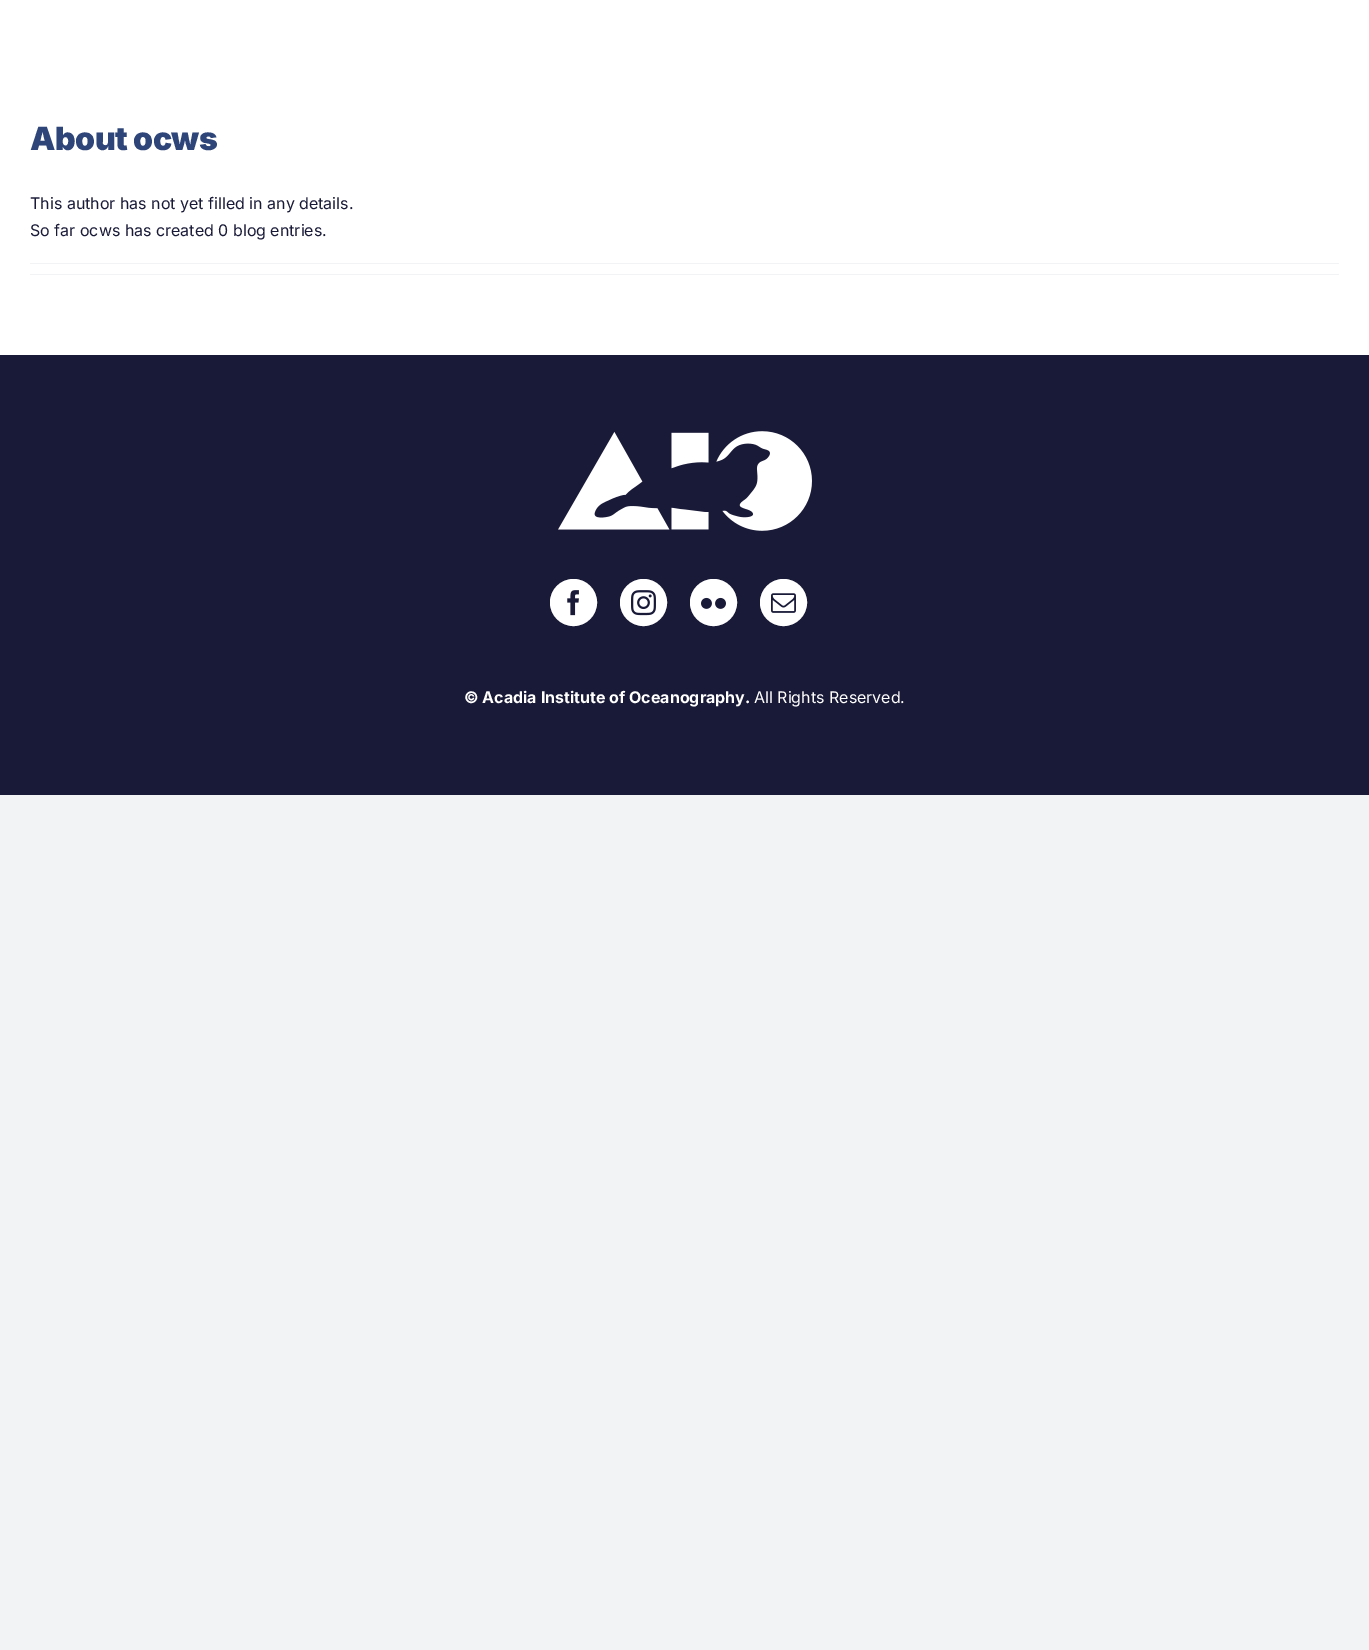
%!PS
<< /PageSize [1369 1650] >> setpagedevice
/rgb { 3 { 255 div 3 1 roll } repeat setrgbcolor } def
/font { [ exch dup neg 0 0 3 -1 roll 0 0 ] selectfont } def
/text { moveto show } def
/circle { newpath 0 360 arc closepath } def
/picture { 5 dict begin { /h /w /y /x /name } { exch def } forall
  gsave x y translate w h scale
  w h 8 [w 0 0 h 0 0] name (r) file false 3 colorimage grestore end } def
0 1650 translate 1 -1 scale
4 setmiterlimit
242 243 245 rgb
0 0 1369 1650 rectfill
255 255 255 rgb
0 0 1369 355 rectfill
242 243 245 rgb
30 263 1309 1 rectfill
30 274 1309 1 rectfill
25 26 56 rgb
0 355 1369 440 rectfill
(img_01.rgb) 558 431 254 100 picture
255 255 255 rgb
573.5 602.5 23 circle gsave fill grestore
stroke
(img_02.rgb) 567 590 12 26 picture
643.5 602.5 23 circle gsave fill grestore
stroke
(img_03.rgb) 631 590 25 26 picture
713.5 602.5 23 circle gsave fill grestore
stroke
(img_04.rgb) 701 597 25 12 picture
783.5 602.5 23 circle gsave fill grestore
stroke
(img_05.rgb) 771 593 25 20 picture
/Inter-Black 32 font
46 69 121 rgb
30 150 moveto -0.5 0 (About ocws) ashow
/Inter-Regular 16 font
25 26 56 rgb
(This author has not yet filled in any details.) 30 209 text
(So far ocws has created 0 blog entries.) 30 236 text
/Inter-Bold 16 font
255 255 255 rgb
(© Acadia Institute of Oceanography.) 464 703 text
/Inter-Regular 16 font
(All Rights Reserved.) 754 703 text
showpage
